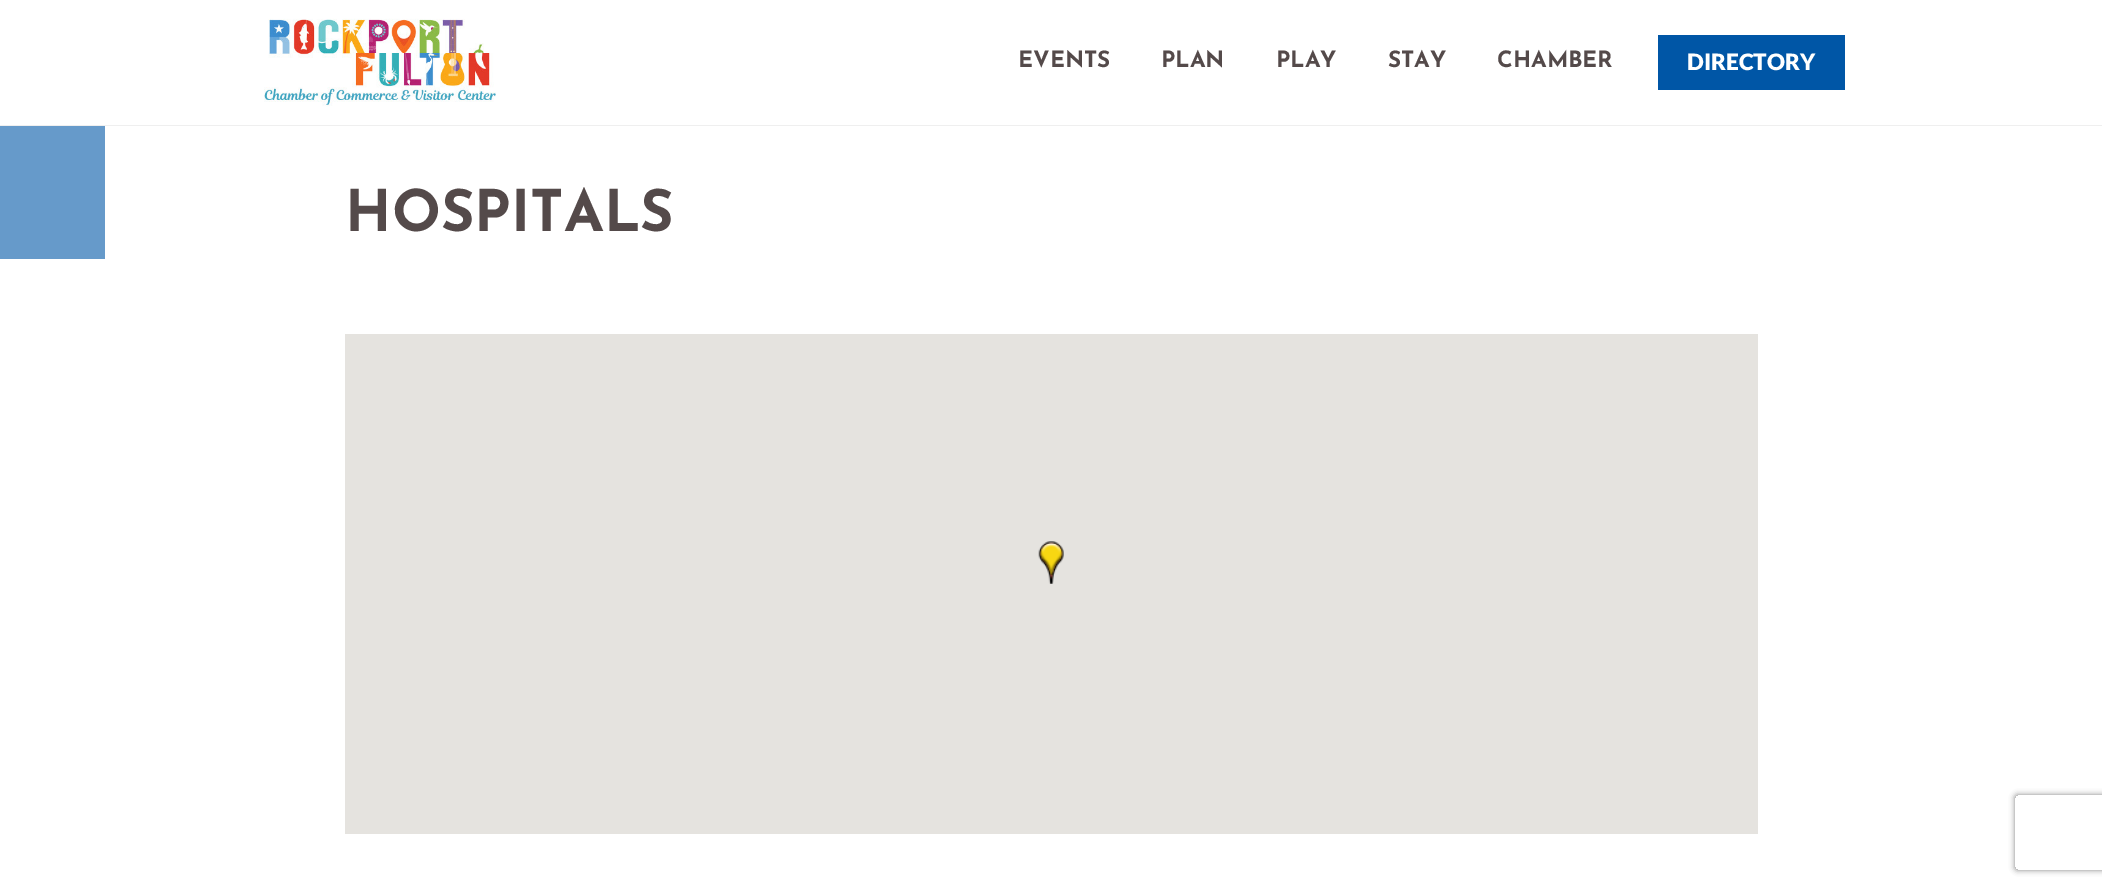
%!PS
<< /PageSize [2102 887] /PageUsesTransparency true >> setpagedevice
/rgb { 3 { 255 div 3 1 roll } repeat setrgbcolor } def
/font { [ exch dup neg 0 0 3 -1 roll 0 0 ] selectfont } def
/text { moveto show } def
/alpha { dup .setfillconstantalpha .setstrokeconstantalpha } def
/roundrect { 5 dict begin { /r /h /w /y /x } { exch def } forall
  x r add y moveto x w add y 2 copy h add r arct x w add y h add x 1 index r arct
  x y h add x y r arct x y 2 copy exch w add exch r arct closepath end } def
/shadow { 12 dict begin { /a /b /q /h /w /y /x } { exch def } forall gsave /was 0 def
  9 -2 -9 { dup b mul 4 div /e exch def 1 sub .425 mul 2.718 exch exp 1 add a .99 .min exch div /now exch def
    1 1 now sub 1 was sub div sub alpha /was now def
    w h .min e 2 mul add 0 gt { x e sub y e sub w e 2 mul add h e 2 mul add
      q e add b .6 mul add w h .min 2 div e add .min 0 .max roundrect fill } if } for grestore end } def
/picture { 5 dict begin { /h /w /y /x /name } { exch def } forall
  gsave x y translate w h scale
  w h 8 [w 0 0 h 0 0] name (r) file false 3 colorimage grestore end } def
0 .pushpdf14devicefilter
0 887 translate 1 -1 scale
4 setmiterlimit
255 255 255 rgb
0 0 2102 887 rectfill
239 239 239 rgb
0 125 2102 1 rectfill
(img_01.rgb) 264 18 232 89 picture
0 86 166 rgb
1658 35 187 55 rectfill
102 154 202 rgb
0 126 105 133 rectfill
229 227 223 rgb
345 334 1413 500 rectfill
(img_02.rgb) 1038 541 26 43 picture
gsave
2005 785 moveto 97 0 rlineto 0 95 rlineto -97 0 rlineto closepath 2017.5 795 moveto 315 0 rlineto 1.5 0 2.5 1 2.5 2.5 rcurveto 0 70 rlineto 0 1.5 -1 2.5 -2.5 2.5 rcurveto -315 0 rlineto -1.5 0 -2.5 -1 -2.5 -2.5 rcurveto 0 -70 rlineto 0 -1.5 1 -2.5 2.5 -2.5 rcurveto closepath eoclip newpath
128 128 128 rgb
2015 795 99 75 2.5 3 1 shadow
grestore
/JosefinSans-Thin 22.5 font
84 74 74 rgb
(EVENTS) 1018 67 text
(PLAN) 1161 67 text
(PLAY) 1276 67 text
(STAY) 1388 67 text
(CHAMBER) 1497 67 text
/Lato-Black 22.5 font
255 255 255 rgb
(DIRECTORY) 1687 70 text
/JosefinSans-Thin 57.5 font
84 74 74 rgb
(HOSPITALS) 345 231 text
.poppdf14devicefilter showpage
